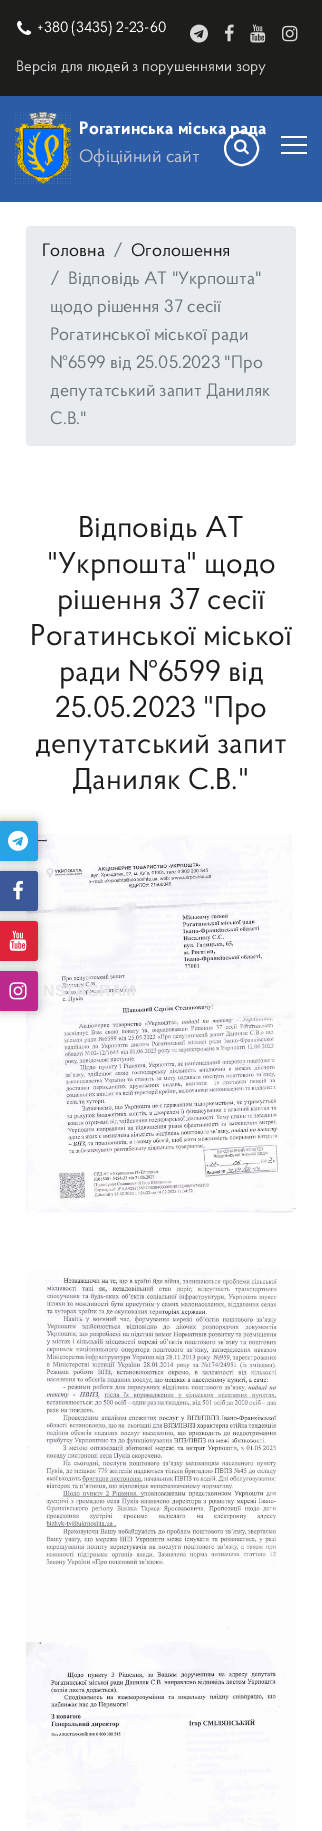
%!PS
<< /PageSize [322 1831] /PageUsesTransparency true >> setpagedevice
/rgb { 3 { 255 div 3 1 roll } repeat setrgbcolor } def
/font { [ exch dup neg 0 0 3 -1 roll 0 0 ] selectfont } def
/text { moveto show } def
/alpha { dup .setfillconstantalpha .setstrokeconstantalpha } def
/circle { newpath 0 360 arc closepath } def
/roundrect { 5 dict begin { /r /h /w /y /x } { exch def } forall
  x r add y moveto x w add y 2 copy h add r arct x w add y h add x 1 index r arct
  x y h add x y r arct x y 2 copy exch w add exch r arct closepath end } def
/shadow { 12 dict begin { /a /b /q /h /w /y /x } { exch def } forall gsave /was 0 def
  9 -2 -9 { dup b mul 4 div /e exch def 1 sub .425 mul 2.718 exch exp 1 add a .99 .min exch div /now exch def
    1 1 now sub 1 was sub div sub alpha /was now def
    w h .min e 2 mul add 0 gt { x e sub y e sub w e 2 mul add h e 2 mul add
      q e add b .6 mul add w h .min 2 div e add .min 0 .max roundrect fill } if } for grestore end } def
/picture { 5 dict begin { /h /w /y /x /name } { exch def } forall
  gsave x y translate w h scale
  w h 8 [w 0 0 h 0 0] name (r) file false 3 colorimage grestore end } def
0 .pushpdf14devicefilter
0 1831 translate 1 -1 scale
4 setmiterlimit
255 255 255 rgb
0 0 322 1831 rectfill
29 29 27 rgb
0 0 322 96 rectfill
(img_01.rgb) 17 20 15 15 picture
(img_02.rgb) 190 24 18 19 picture
(img_03.rgb) 224 24 10 18 picture
(img_04.rgb) 250 24 16 19 picture
(img_05.rgb) 282 25 16 17 picture
45 92 166 rgb
0 96 322 106 rectfill
(img_06.rgb) 15 112 56 72 picture
255 255 255 rgb
2 setlinewidth
241.5 148.5 16.5 circle stroke
(img_07.rgb) 234 139 15 16 picture
281 144 26 2 rectfill
281 136 26 2 rectfill
281 152 26 2 rectfill
233 236 239 rgb
26 226 270 220 4 roundrect fill
(img_08.rgb) 26 834 270 379 picture
(img_09.rgb) 26 1268 270 374 picture
(img_10.rgb) 26 1642 270 189 picture
0 0 0 rgb
-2 821 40 40 3 5 0.3 shadow
39 164 228 rgb
-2 821 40 40 3 roundrect fill
(img_11.rgb) 8 830 20 21 picture
0 0 0 rgb
-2 871 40 40 3 5 0.3 shadow
59 89 152 rgb
-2 871 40 40 3 roundrect fill
(img_12.rgb) 13 880 10 20 picture
0 0 0 rgb
-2 921 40 40 3 5 0.3 shadow
222 36 57 rgb
-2 921 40 40 3 roundrect fill
(img_13.rgb) 9 930 18 21 picture
0 0 0 rgb
-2 971 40 40 3 5 0.3 shadow
188 42 141 rgb
-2 971 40 40 3 roundrect fill
(img_14.rgb) 9 982 18 18 picture
/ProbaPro-Regular 15 font
255 255 255 rgb
(+380 \(3435\) 2-23-60) 37 32 text
216 216 216 rgb
(Версія для людей з порушеннями зору) 16 71 text
/ProbaPro-Bold 18 font
255 255 255 rgb
(Рогатинська міська рада) 79 134 text
/ProbaPro-Regular 18 font
194 197 203 rgb
(Офіційний сайт) 79 162 text
29 29 27 rgb
(Головна) 42 256 text
108 117 125 rgb
(/) 113 256 text
29 29 27 rgb
(Оголошення) 131 256 text
108 117 125 rgb
(/) 50 284 text
(Відповідь АТ "Укрпошта") 68 284 text
(щодо рішення 37 сесії) 50 312 text
(Рогатинської міської ради) 50 340 text
(№6599 від 25.05.2023 "Про) 50 368 text
(депутатський запит Даниляк) 50 396 text
(С.В.") 50 424 text
/ProbaPro-Regular 30 font
29 29 27 rgb
(Відповідь АТ) 78 537 text
("Укрпошта" щодо) 47 573 text
(рішення 37 сесії) 57 609 text
(Рогатинської міської) 30 645 text
(ради №6599 від) 59 681 text
(25.05.2023 "Про) 55 717 text
(депутатський запит) 35 753 text
(Даниляк С.В.") 72 789 text
/LiberationSans-Bold 16 font
232 231 234 rgb
(NSTAGRAM) 43 996 text
.poppdf14devicefilter showpage
